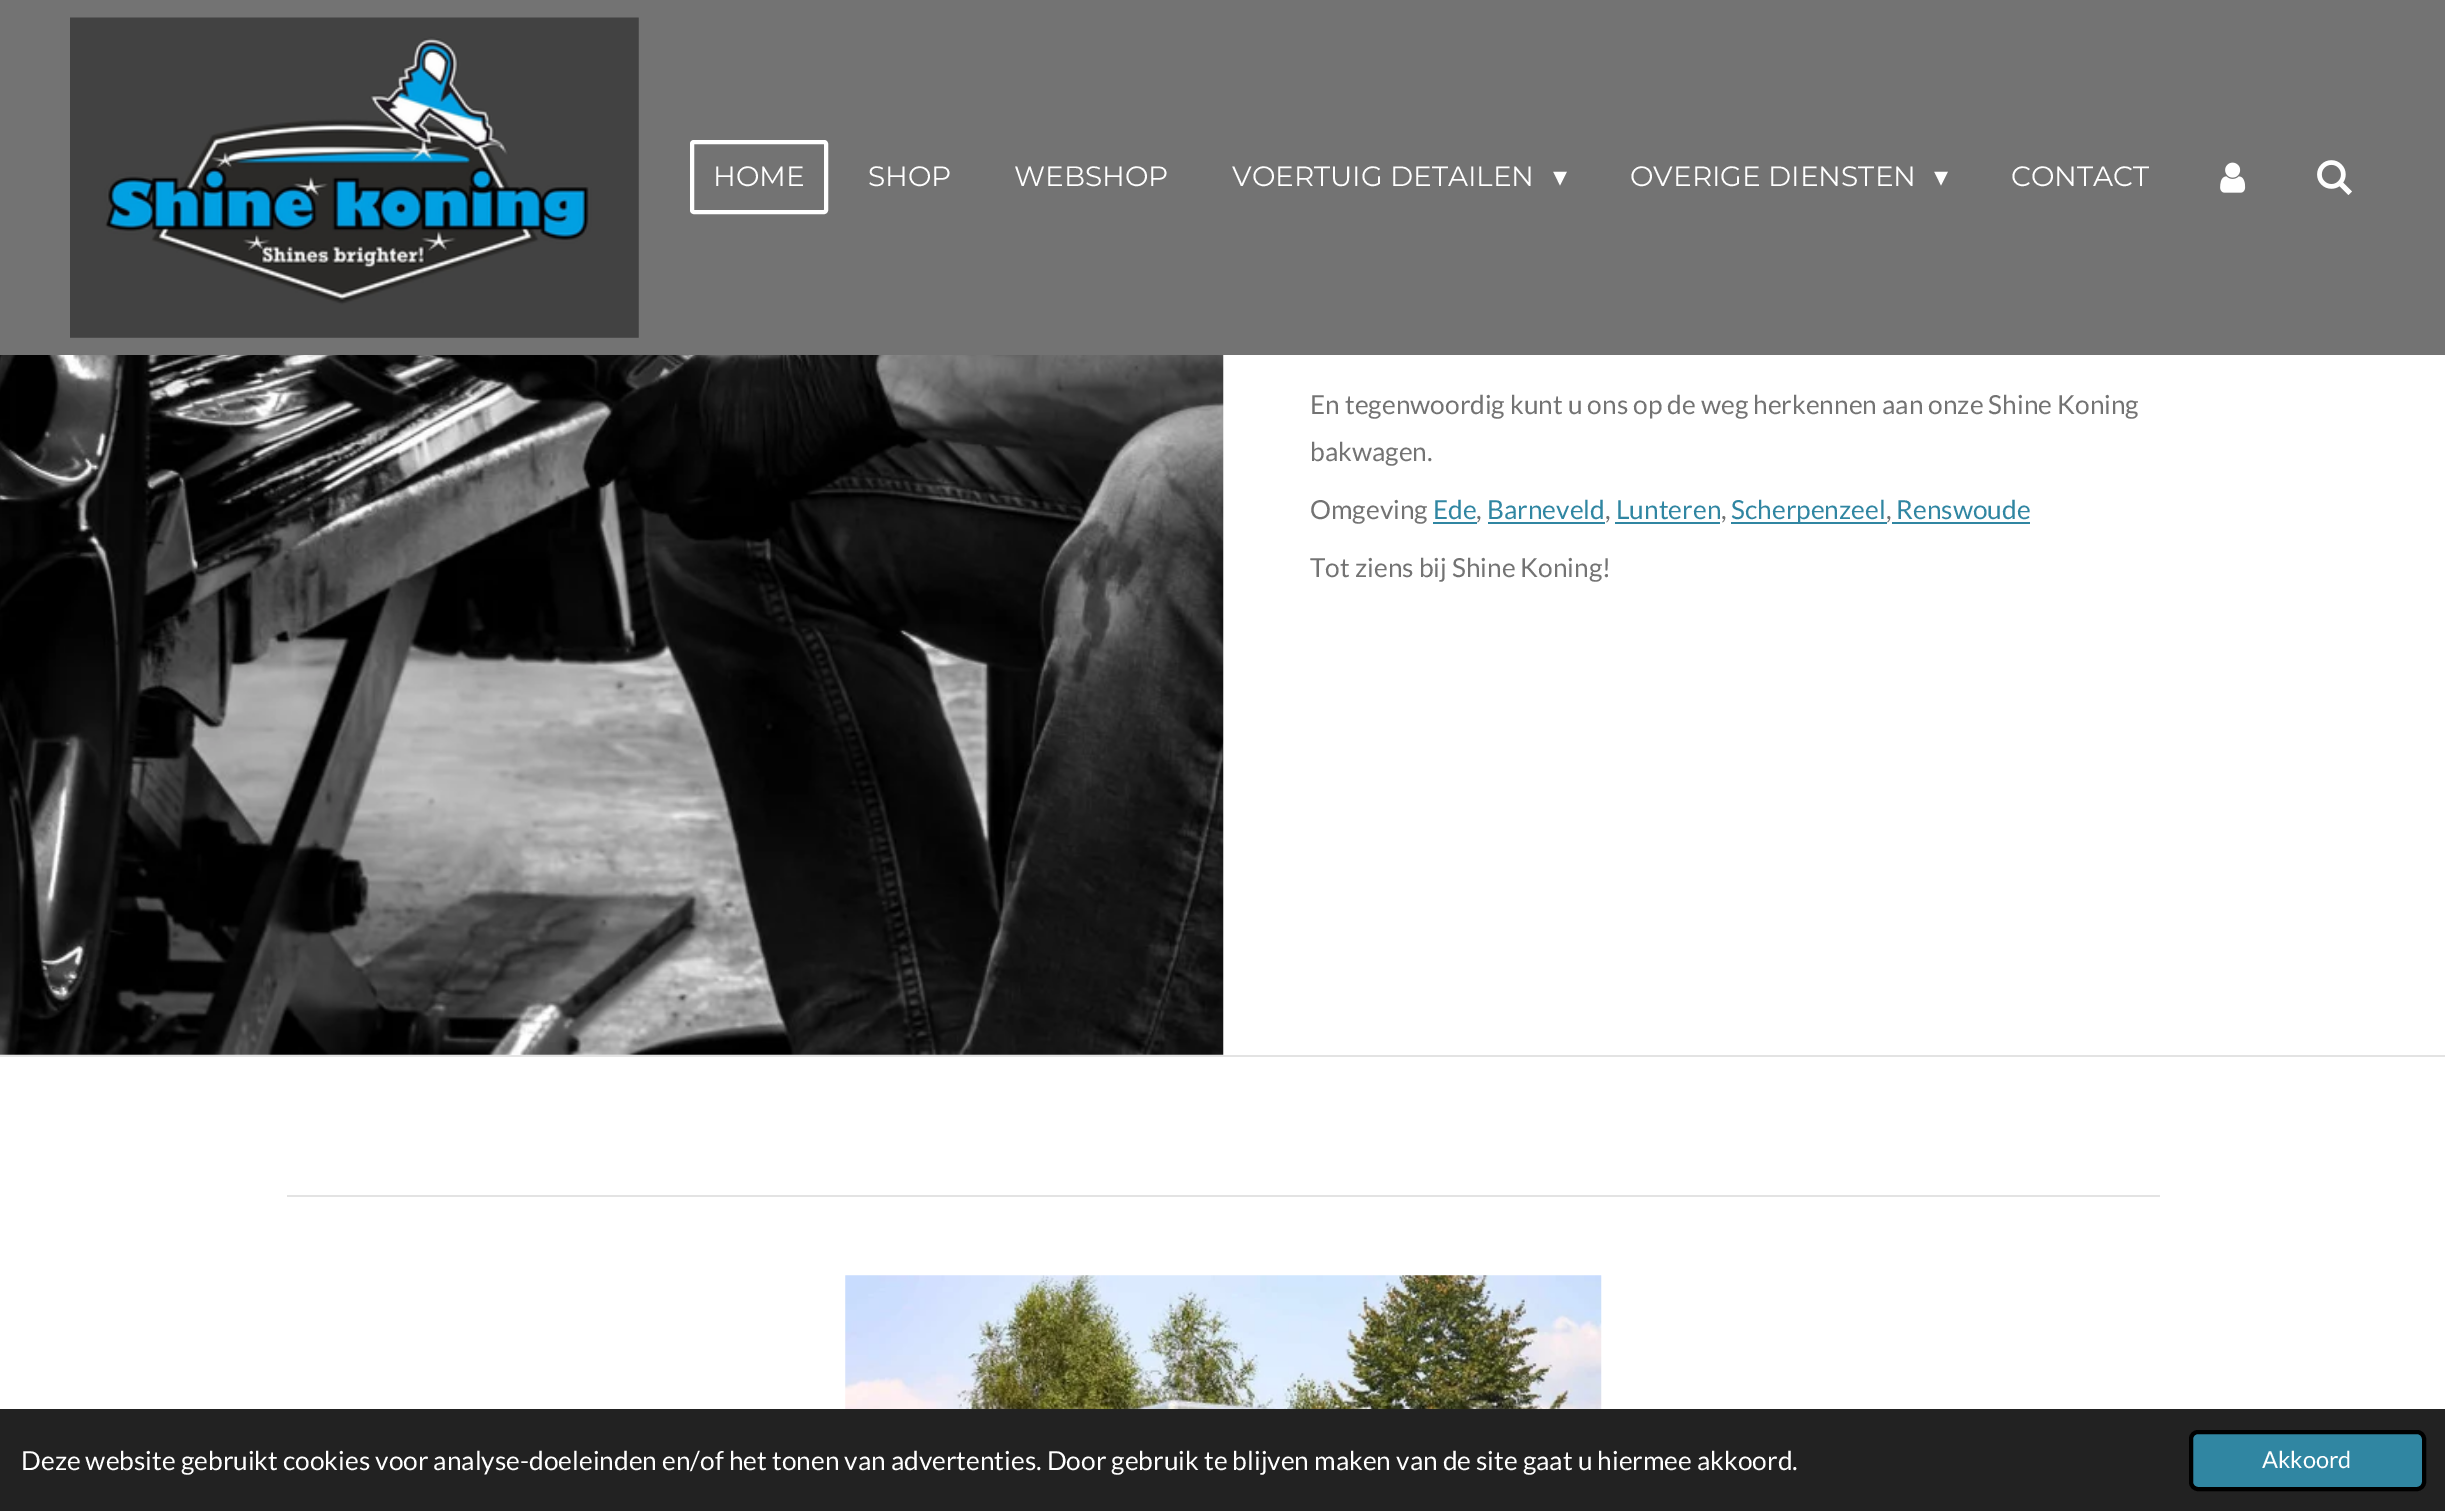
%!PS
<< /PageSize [2445 1511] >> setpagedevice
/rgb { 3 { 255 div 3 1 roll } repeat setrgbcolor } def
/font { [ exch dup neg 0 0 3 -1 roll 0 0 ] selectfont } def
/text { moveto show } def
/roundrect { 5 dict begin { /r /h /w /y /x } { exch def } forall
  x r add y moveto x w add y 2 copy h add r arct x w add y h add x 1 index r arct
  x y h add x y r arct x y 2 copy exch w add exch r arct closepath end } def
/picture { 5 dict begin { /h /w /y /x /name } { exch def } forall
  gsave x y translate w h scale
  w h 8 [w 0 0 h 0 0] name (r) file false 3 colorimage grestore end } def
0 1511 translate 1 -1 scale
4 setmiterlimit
255 255 255 rgb
0 0 2445 1511 rectfill
115 115 115 rgb
0 0 2445 355 rectfill
(img_01.rgb) 70 17 569 321 picture
255 255 255 rgb
4 setlinewidth
692 142 134 70 2 roundrect stroke
(img_02.rgb) 2220 162 26 31 picture
(img_03.rgb) 2317 160 35 35 picture
(img_04.rgb) 0 355 1224 700 picture
48 134 162 rgb
1433 522 44 2 rectfill
1488 522 117 2 rectfill
1615 522 105 2 rectfill
1731 522 156 2 rectfill
1892 522 138 2 rectfill
227 227 227 rgb
0 1055 2445 2 rectfill
287 1195 1873 2 rectfill
(img_05.rgb) 845 1275 757 134 picture
34 34 34 rgb
0 1409 2445 102 rectfill
48 134 162 rgb
2191 1432 233 57 7 roundrect gsave fill grestore
0 0 0 rgb
stroke
/Montserrat-Regular 28 font
255 255 255 rgb
(HOME) 713 186 text
(SHOP) 868 186 text
(WEBSHOP) 1014 186 text
(VOERTUIG DETAILEN) 1232 186 text
/DejaVuSans-Regular 28 font
(▾) 1553 186 text
/Montserrat-Regular 28 font
(OVERIGE DIENSTEN) 1630 186 text
/DejaVuSans-Regular 28 font
(▾) 1934 186 text
/Montserrat-Regular 28 font
(CONTACT) 2011 186 text
/Lato-Regular 26.25 font
115 115 115 rgb
(En tegenwoordig kunt u ons op de weg herkennen aan onze Shine Koning) 1310 414 text
(bakwagen.) 1310 461 text
(Omgeving) 1310 519 text
48 134 162 rgb
(Ede) 1433 519 text
115 115 115 rgb
(,) 1476 519 text
48 134 162 rgb
(Barneveld) 1487 519 text
115 115 115 rgb
(,) 1605 519 text
48 134 162 rgb
(Lunteren) 1616 519 text
115 115 115 rgb
(,) 1721 519 text
48 134 162 rgb
(Scherpenzeel) 1731 519 text
115 115 115 rgb
(,) 1886 519 text
48 134 162 rgb
(Renswoude) 1896 519 text
115 115 115 rgb
(Tot ziens bij Shine Koning!) 1310 577 text
255 255 255 rgb
(Deze website gebruikt cookies voor analyse-doeleinden en/of het tonen van advertenties. Door gebruik te blijven maken van de site gaat u hiermee akkoord.) 21 1470 text
/Lato-Regular 23.5 font
(Akkoord) 2262 1468 text
showpage
